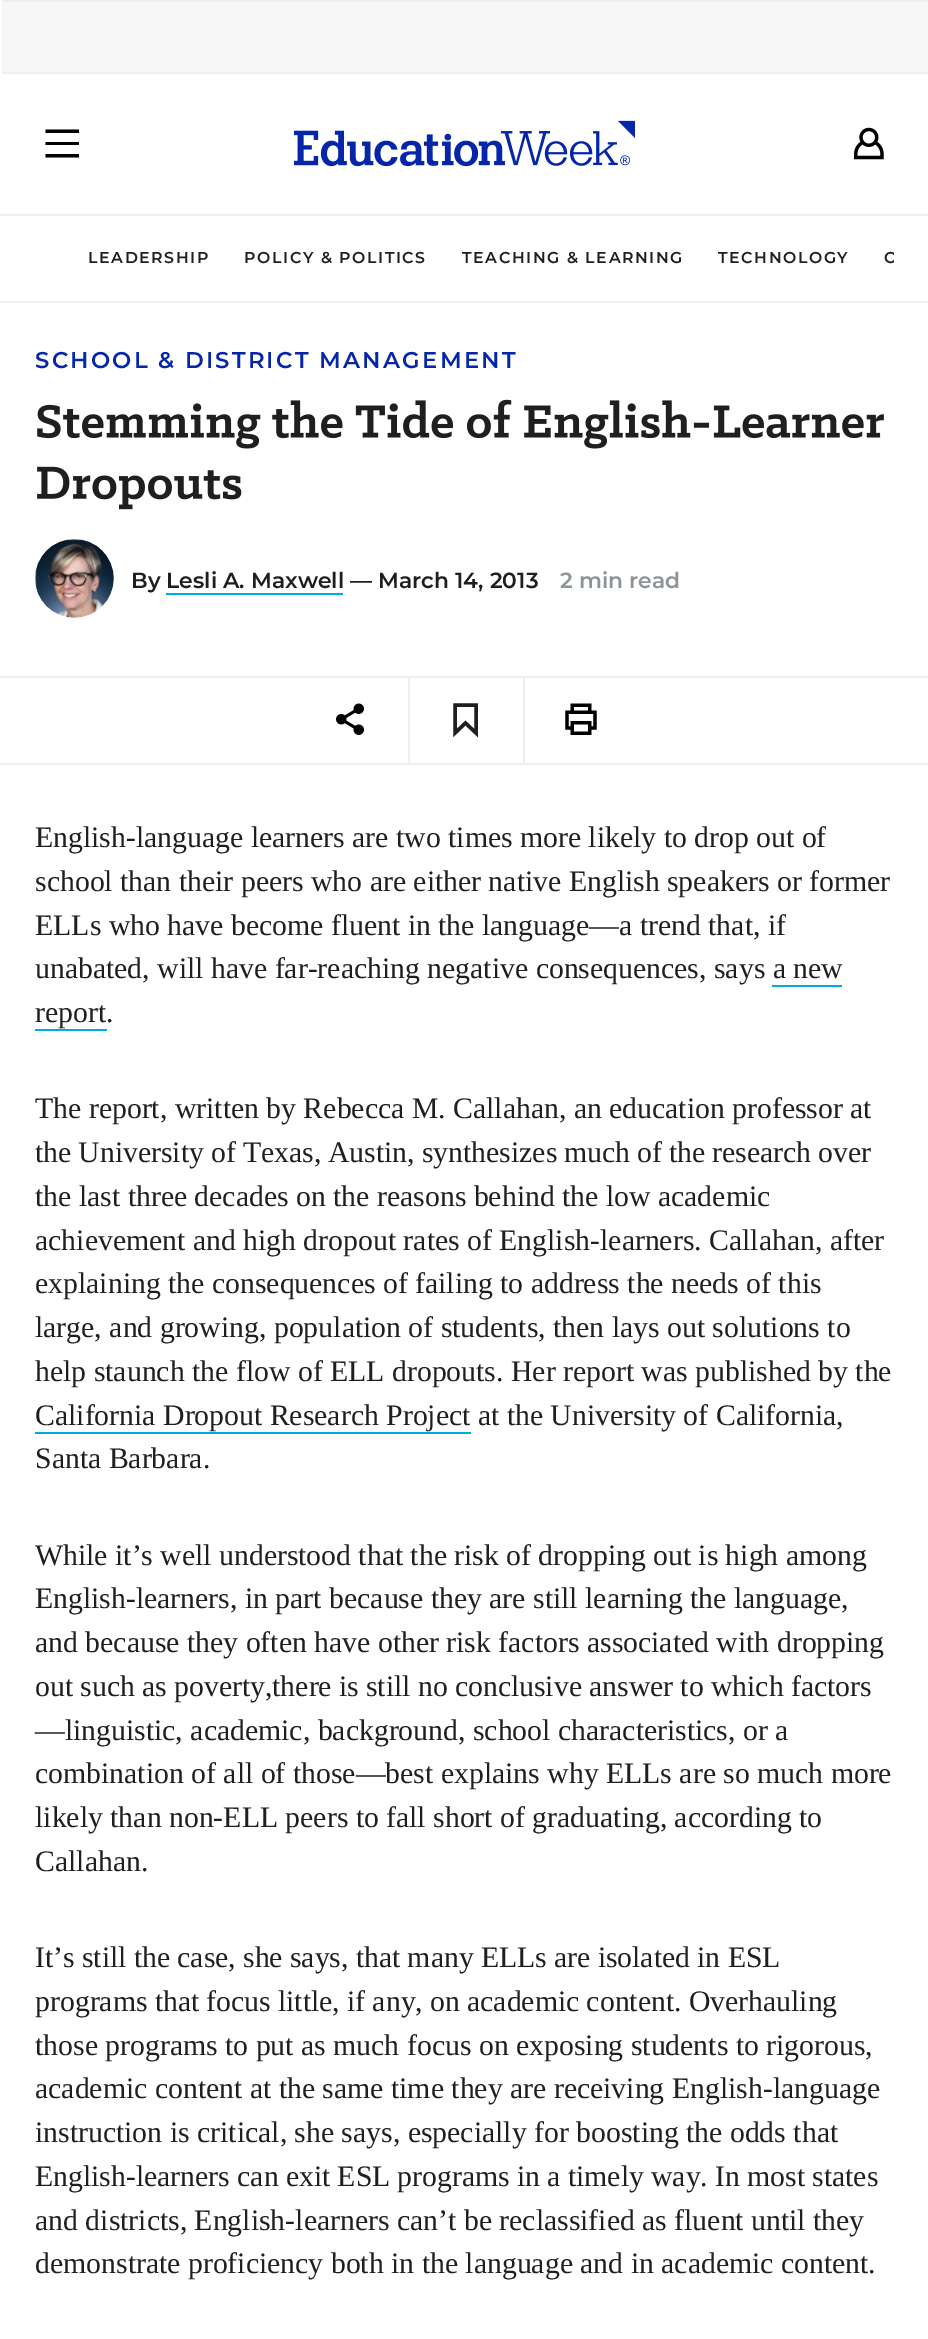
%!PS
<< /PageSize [928 2339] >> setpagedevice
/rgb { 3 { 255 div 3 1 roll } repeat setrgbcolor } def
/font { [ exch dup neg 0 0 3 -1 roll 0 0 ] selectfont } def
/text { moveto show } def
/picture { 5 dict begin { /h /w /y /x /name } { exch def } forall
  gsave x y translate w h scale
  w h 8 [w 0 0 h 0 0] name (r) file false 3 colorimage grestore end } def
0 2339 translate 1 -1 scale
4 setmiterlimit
255 255 255 rgb
0 0 928 2339 rectfill
247 247 247 rgb
2 2 926 70 rectfill
235 239 240 rgb
2 0 926 2 rectfill
2 72 926 2 rectfill
0 214 928 2 rectfill
0 0 0 rgb
79 129.5 moveto -33.5 0 rlineto 0 3.5 rlineto 33.5 0 rlineto closepath 45.5 142 moveto 33.5 0 rlineto 0 3 rlineto -33.5 0 rlineto closepath 45.5 154 moveto 33.5 0 rlineto 0 3.5 rlineto -33.5 0 rlineto closepath eofill
(img_01.rgb) 294 120 341 47 picture
(img_02.rgb) 854 127 30 33 picture
gsave
0 215 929 88 rectclip
235 239 240 rgb
-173 42 moveto 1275 0 rlineto 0 434 rlineto -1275 0 rlineto closepath -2 214 moveto 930 0 rlineto 0 87 rlineto -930 0 rlineto closepath eofill
grestore
(img_03.rgb) 37 399 847 50 picture
(img_04.rgb) 37 466 205 44 picture
(img_05.rgb) 35 539 79 79 picture
0 172 216 rgb
166 593 177 2 rectfill
235 239 240 rgb
408 676 2 87 rectfill
523 676 2 87 rectfill
0 676 928 2 rectfill
(img_06.rgb) 336 703 28 32 picture
31 31 31 rgb
3.5 setlinewidth
455 705 moveto 21 0 rlineto 0 28 rlineto -10.5 -10 rlineto -10.5 10 rlineto closepath stroke
(img_07.rgb) 565 703 32 32 picture
235 239 240 rgb
0 763 928 2 rectfill
0 172 216 rgb
772 985 70 2 rectfill
35 1029 72 2 rectfill
35 1432 436 2 rectfill
/Montserrat-SemiBold 15.75 font
31 31 31 rgb
88 263 moveto 1.6 0 (LEADERSHIP) ashow
244 263 moveto 1.6 0 (POLICY & POLITICS) ashow
462 263 moveto 1.6 0 (TEACHING & LEARNING) ashow
718 263 moveto 1.6 0 (TECHNOLOGY) ashow
gsave
35 215 859 88 rectclip
884 263 moveto 1.6 0 (O) ashow
grestore
/Montserrat-SemiBold 22.75 font
6 38 169 rgb
35 368 moveto -0.25 0 32 2.25 0 (SCHOOL & DISTRICT MANAGEMENT) awidthshow
/Montserrat-SemiBold 21.9 font
31 31 31 rgb
(By Lesli A. Maxwell) 131 588 text
(— March 14, 2013) 350 588 text
141 148 152 rgb
(2 min read) 560 588 text
/LiberationSerif-Regular 29.75 font
31 31 31 rgb
(English-language learners are two times more likely to drop out of) 35 847 text
(school than their peers who are either native English speakers or former) 35 891 text
(ELLs who have become fluent in the language—a trend that, if) 35 935 text
(unabated, will have far-reaching negative consequences, says a new) 35 978 text
(report.) 35 1022 text
(The report, written by Rebecca M. Callahan, an education professor at) 35 1118 text
35 1162 moveto -0.5 0 32 (the University of Texas, Austin, synthesizes much of the research over) widthshow
(the last three decades on the reasons behind the low academic) 35 1206 text
(achievement and high dropout rates of English-learners. Callahan, after) 35 1250 text
(explaining the consequences of failing to address the needs of this) 35 1293 text
(large, and growing, population of students, then lays out solutions to) 35 1337 text
(help staunch the flow of ELL dropouts. Her report was published by the) 35 1381 text
(California Dropout Research Project at the University of California,) 35 1425 text
(Santa Barbara.) 35 1468 text
35 1565 moveto -0.1 0 32 (While it’s well understood that the risk of dropping out is high among) widthshow
(English-learners, in part because they are still learning the language,) 35 1608 text
(and because they often have other risk factors associated with dropping) 35 1652 text
35 1696 moveto -0.25 0 32 (out such as poverty,there is still no conclusive answer to which factors) widthshow
(—linguistic, academic, background, school characteristics, or a) 35 1740 text
(combination of all of those—best explains why ELLs are so much more) 35 1783 text
(likely than non-ELL peers to fall short of graduating, according to) 35 1827 text
(Callahan.) 35 1871 text
35 1967 moveto -0.25 0 32 (It’s still the case, she says, that many ELLs are isolated in ESL) widthshow
35 2011 moveto -0.25 0 32 (programs that focus little, if any, on academic content. Overhauling) widthshow
(those programs to put as much focus on exposing students to rigorous,) 35 2055 text
(academic content at the same time they are receiving English-language) 35 2098 text
(instruction is critical, she says, especially for boosting the odds that) 35 2142 text
35 2186 moveto -0.25 0 32 (English-learners can exit ESL programs in a timely way. In most states) widthshow
(and districts, English-learners can’t be reclassified as fluent until they) 35 2230 text
(demonstrate proficiency both in the language and in academic content.) 35 2273 text
showpage
